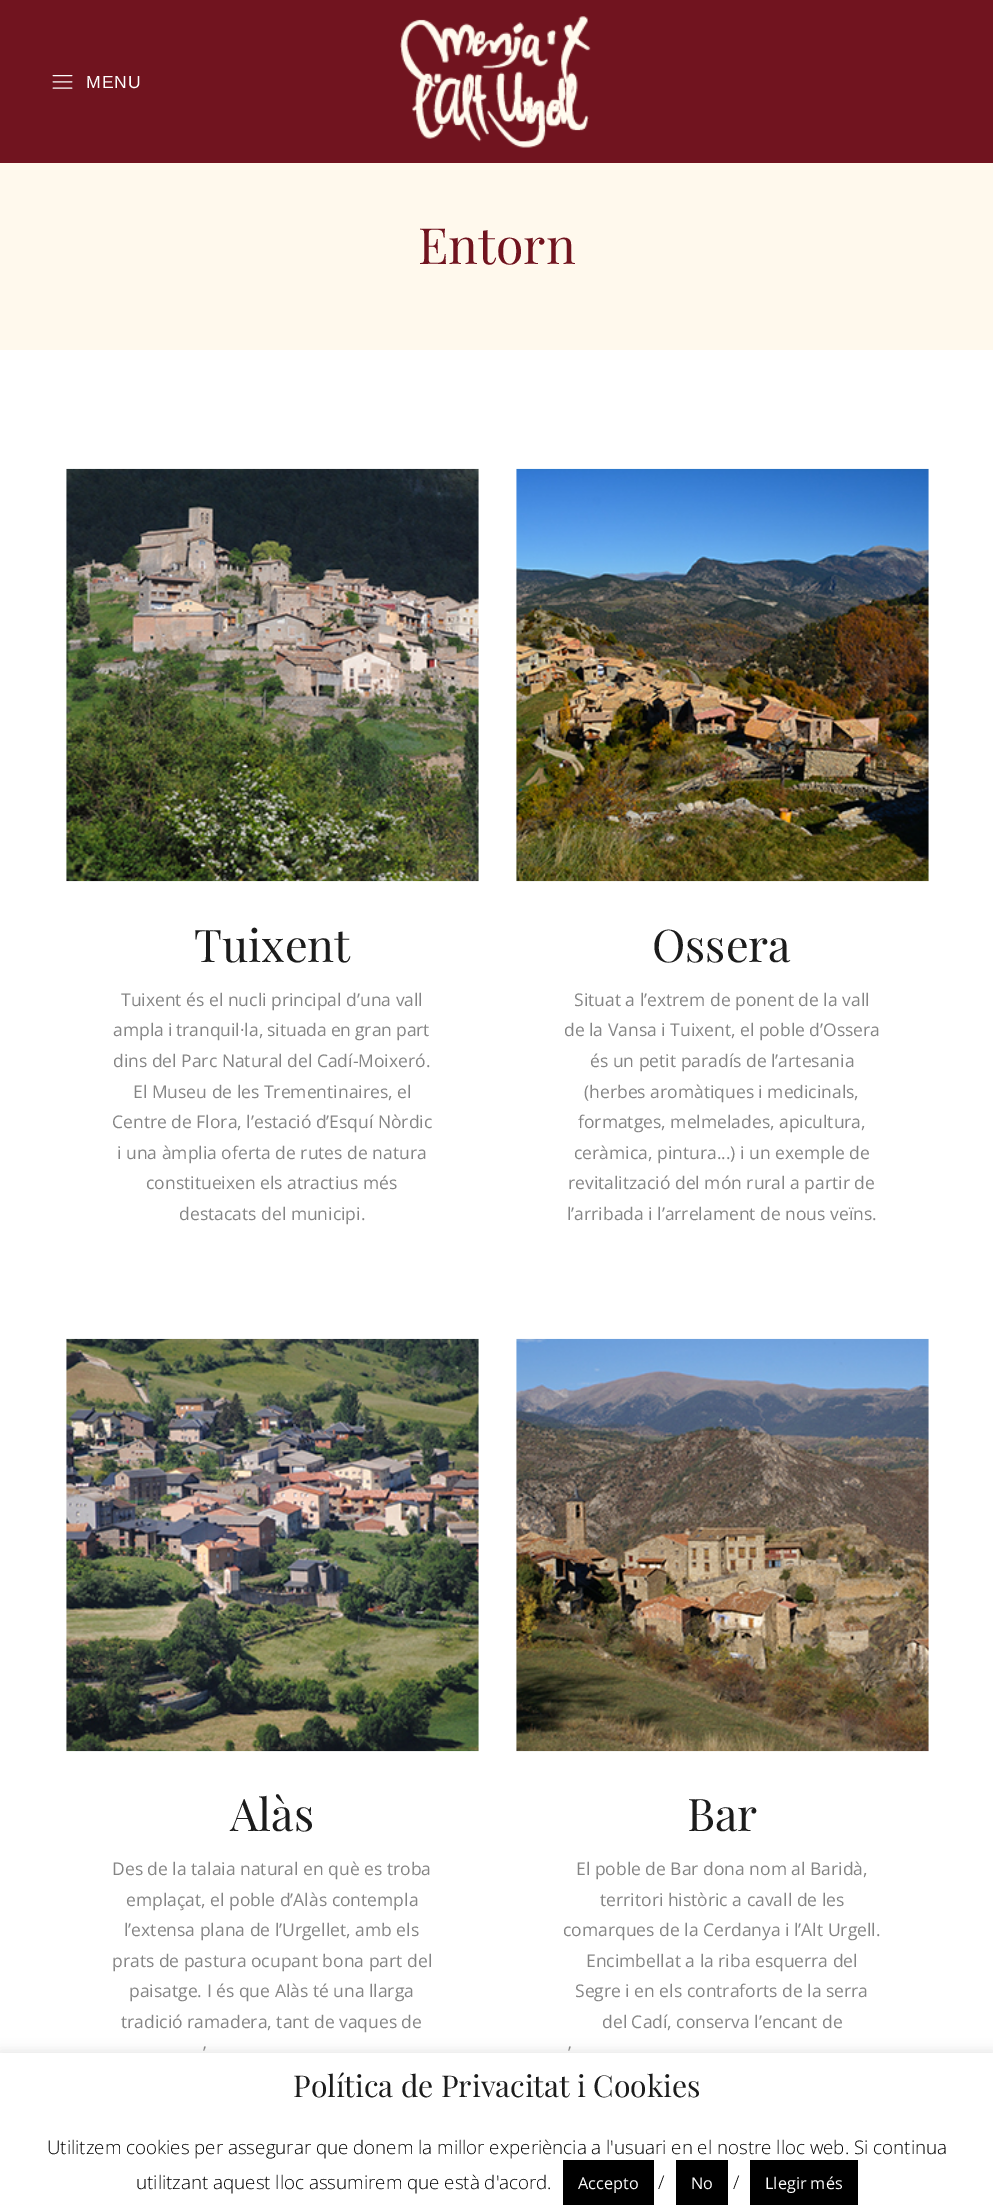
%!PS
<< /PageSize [993 2212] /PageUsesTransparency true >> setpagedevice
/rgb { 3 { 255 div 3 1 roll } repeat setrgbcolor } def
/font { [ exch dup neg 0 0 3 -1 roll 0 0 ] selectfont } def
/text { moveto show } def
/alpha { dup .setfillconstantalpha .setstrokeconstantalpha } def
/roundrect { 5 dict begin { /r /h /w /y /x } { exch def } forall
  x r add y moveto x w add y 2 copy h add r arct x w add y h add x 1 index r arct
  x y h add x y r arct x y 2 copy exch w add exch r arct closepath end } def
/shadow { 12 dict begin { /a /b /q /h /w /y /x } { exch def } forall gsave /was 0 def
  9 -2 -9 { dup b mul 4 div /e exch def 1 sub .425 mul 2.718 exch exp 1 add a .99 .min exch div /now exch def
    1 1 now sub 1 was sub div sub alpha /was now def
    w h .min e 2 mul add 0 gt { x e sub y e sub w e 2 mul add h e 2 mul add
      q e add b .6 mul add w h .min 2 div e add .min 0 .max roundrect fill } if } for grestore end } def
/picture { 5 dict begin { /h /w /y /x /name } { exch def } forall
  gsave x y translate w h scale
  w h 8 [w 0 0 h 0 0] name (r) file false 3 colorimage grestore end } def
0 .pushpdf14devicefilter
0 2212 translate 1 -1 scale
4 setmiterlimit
255 255 255 rgb
0 0 993 2212 rectfill
113 20 31 rgb
0 0 993 163 rectfill
(img_01.rgb) 52 75 21 14 picture
(img_02.rgb) 400 16 191 132 picture
255 249 237 rgb
0 163 993 187 rectfill
(img_03.rgb) 66 468 413 414 picture
(img_04.rgb) 516 468 413 414 picture
(img_05.rgb) 66 1338 413 414 picture
(img_06.rgb) 516 1338 413 414 picture
172 171 171 rgb
0 2051 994 160 0 6 0.3 shadow
255 255 255 rgb
0 2053 993 159 rectfill
0 0 0 rgb
563 2160 91 45 rectfill
676 2160 52 45 rectfill
750 2160 108 45 rectfill
/LiberationSans-Regular 17.5 font
255 255 255 rgb
86 88 moveto 1 0 (MENU) ashow
/PlayfairDisplay-Regular 50 font
113 20 31 rgb
(Entorn) 418 264 text
/PlayfairDisplay-Regular 45 font
28 28 28 rgb
(Tuixent) 194 962 text
/OpenSans-Regular 17.5 font
133 133 133 rgb
(Tuixent és el nucli principal d’una vall) 121 1006 text
113 1036 moveto -0.75 0 32 (ampla i tranquil·la, situada en gran part) widthshow
(dins del Parc Natural del Cadí-Moixeró.) 113 1067 text
(El Museu de les Trementinaires, el) 133 1098 text
(Centre de Flora, l’estació d’Esquí Nòrdic) 112 1128 text
(i una àmplia oferta de rutes de natura) 117 1159 text
(constitueixen els atractius més) 146 1189 text
(destacats del municipi.) 179 1220 text
/PlayfairDisplay-Regular 45 font
28 28 28 rgb
(Ossera) 652 962 text
/OpenSans-Regular 17.5 font
133 133 133 rgb
(Situat a l’extrem de ponent de la vall) 574 1006 text
(de la Vansa i Tuixent, el poble d’Ossera) 564 1036 text
(és un petit paradís de l’artesania) 590 1067 text
(\(herbes aromàtiques i medicinals,) 584 1098 text
(formatges, melmelades, apicultura,) 578 1128 text
(ceràmica, pintura...\) i un exemple de) 574 1159 text
(revitalització del món rural a partir de) 568 1189 text
(l’arribada i l’arrelament de nous veïns.) 567 1220 text
/PlayfairDisplay-Regular 45 font
28 28 28 rgb
(Alàs) 230 1831 text
/OpenSans-Regular 17.5 font
133 133 133 rgb
(Des de la talaia natural en què es troba) 112 1875 text
(emplaçat, el poble d’Alàs contempla) 126 1906 text
(l’extensa plana de l’Urgellet, amb els) 124 1936 text
(prats de pastura ocupant bona part del) 112 1967 text
(paisatge. I és que Alàs té una llarga) 129 1997 text
(tradició ramadera, tant de vaques de) 121 2028 text
(’) 203 2059 text
/PlayfairDisplay-Regular 45 font
28 28 28 rgb
(Bar) 687 1831 text
/OpenSans-Regular 17.5 font
133 133 133 rgb
(El poble de Bar dona nom al Baridà,) 576 1875 text
(territori històric a cavall de les) 600 1906 text
(comarques de la Cerdanya i l’Alt Urgell.) 563 1936 text
(Encimbellat a la riba esquerra del) 586 1967 text
(Segre i en els contraforts de la serra) 575 1997 text
(del Cadí, conserva l’encant de) 602 2028 text
(’) 568 2059 text
/PlayfairDisplay-Regular 30 font
28 28 28 rgb
(Política de Privacitat i Cookies) 293 2097 text
/OpenSans-Light 18.75 font
0 0 0 rgb
(Utilitzem cookies per assegurar que donem la millor experiència a l'usuari en el nostre lloc web. Si continua) 47 2154 text
(utilitzant aquest lloc assumirem que està d'acord.) 136 2189 text
/OpenSans-Regular 16.25 font
255 255 255 rgb
(Accepto) 578 2189 text
/OpenSans-Light 18.75 font
0 0 0 rgb
(/) 658 2189 text
/OpenSans-Regular 16.25 font
255 255 255 rgb
(No) 691 2189 text
/OpenSans-Light 18.75 font
0 0 0 rgb
(/) 733 2189 text
/OpenSans-Regular 16.25 font
255 255 255 rgb
(Llegir més) 765 2189 text
.poppdf14devicefilter showpage
